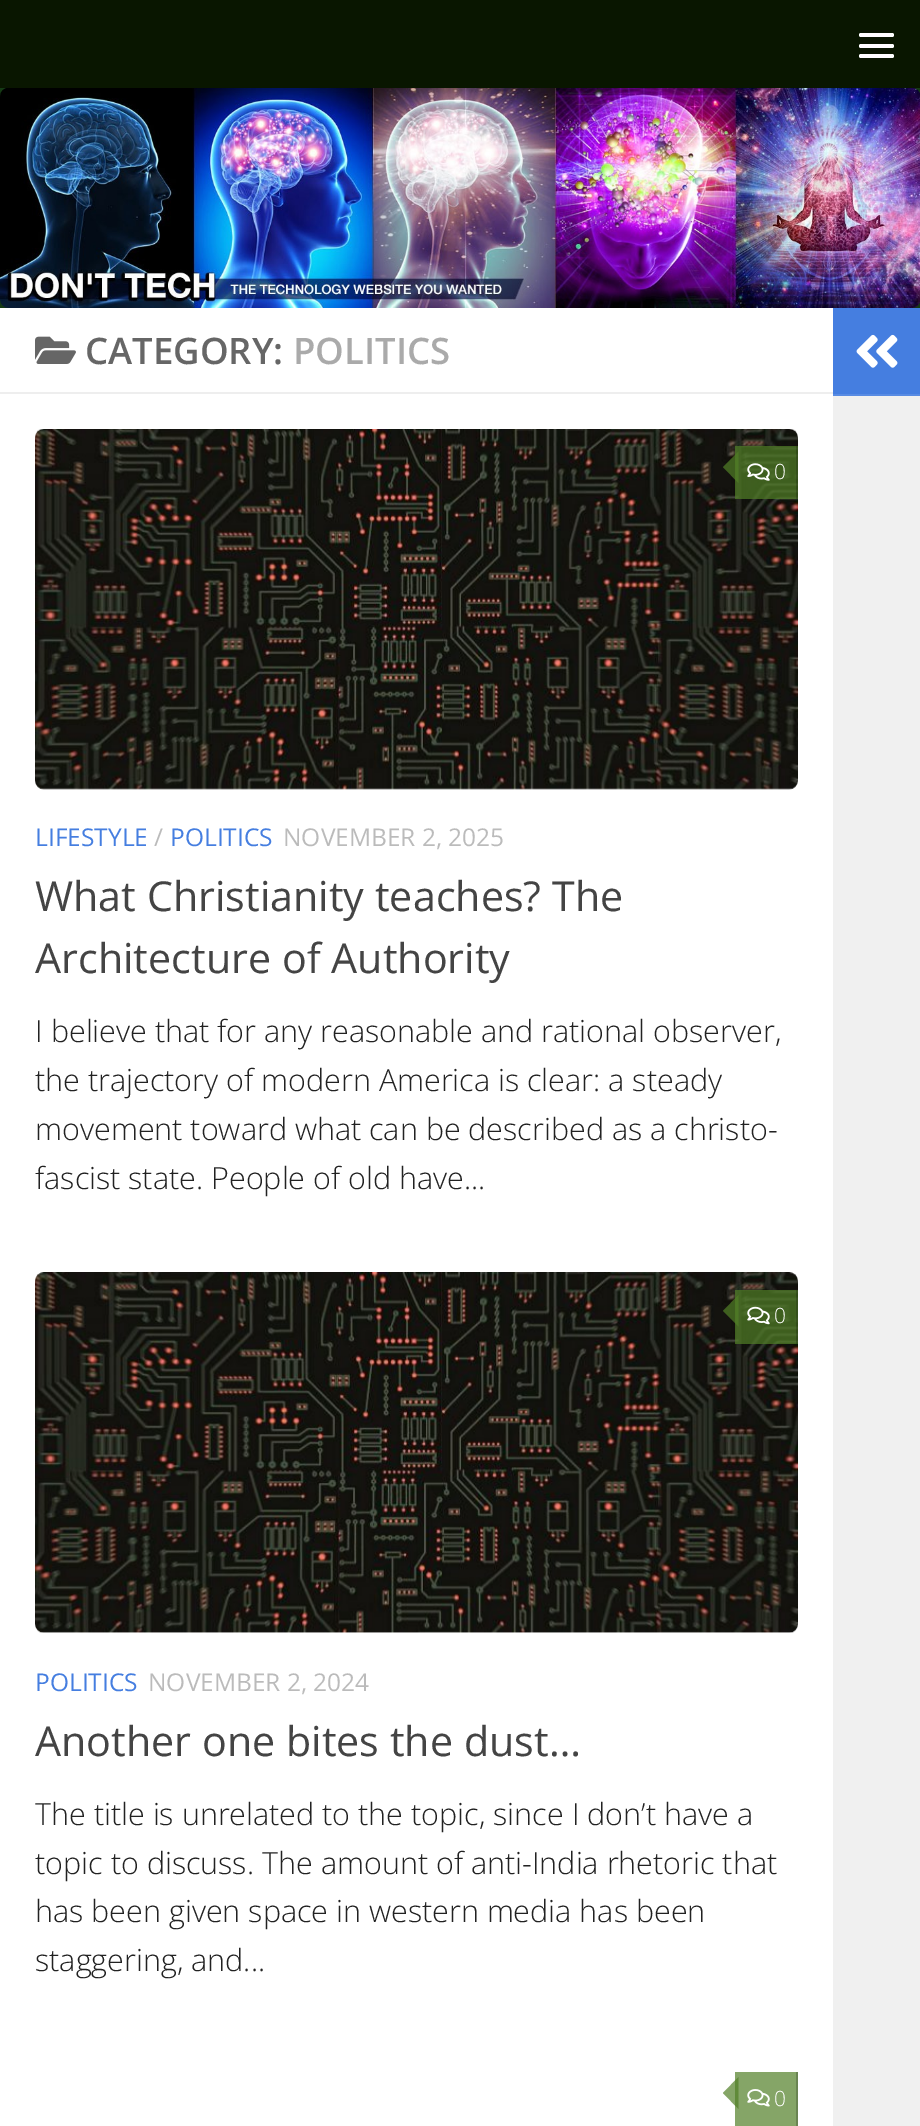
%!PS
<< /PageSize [920 2126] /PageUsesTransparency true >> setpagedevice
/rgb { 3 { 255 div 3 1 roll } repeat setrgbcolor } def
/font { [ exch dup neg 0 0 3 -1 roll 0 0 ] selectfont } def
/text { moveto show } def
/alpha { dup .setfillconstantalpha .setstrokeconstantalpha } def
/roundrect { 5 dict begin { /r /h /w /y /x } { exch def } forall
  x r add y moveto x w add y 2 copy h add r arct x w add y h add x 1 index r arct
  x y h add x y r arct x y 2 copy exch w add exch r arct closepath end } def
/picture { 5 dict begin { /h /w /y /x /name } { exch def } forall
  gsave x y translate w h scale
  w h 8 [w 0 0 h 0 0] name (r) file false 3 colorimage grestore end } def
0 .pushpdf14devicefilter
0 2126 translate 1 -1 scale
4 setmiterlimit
255 255 255 rgb
0 0 920 2126 rectfill
21 59 20 rgb
0 88 920 220 rectfill
9 22 0 rgb
0 0 920 88 rectfill
255 255 255 rgb
859 33 35 4 2 roundrect fill
859 44 35 4 2 roundrect fill
859 54 35 4 2 roundrect fill
(img_01.rgb) 0 88 920 220 picture
238 238 238 rgb
0 392 833 2 rectfill
(img_02.rgb) 35 336 41 28 picture
(img_03.rgb) 35 429 763 361 picture
0.7 alpha
81 127 38 rgb
735 446 63 53 rectfill
0.2 alpha
0 0 0 rgb
796 446 2 53 rectfill
0.7 alpha
81 127 38 rgb
738.5 451.5 moveto 0 31.5 rlineto -15.5 -16 rlineto closepath fill
1 alpha
(img_04.rgb) 747 463 23 18 picture
(img_05.rgb) 35 1272 763 361 picture
0.7 alpha
735 1290 63 54 rectfill
0.2 alpha
0 0 0 rgb
796 1290 2 54 rectfill
0.7 alpha
81 127 38 rgb
738.5 1295 moveto 0 31.5 rlineto -15.5 -15.5 rlineto closepath fill
1 alpha
(img_06.rgb) 747 1306 23 19 picture
133 165 103 rgb
735 2072 61 54 rectfill
106 132 82 rgb
796 2072 2 54 rectfill
0.7 alpha
81 127 38 rgb
738.5 2077 moveto 0 32 rlineto -15.5 -16 rlineto closepath fill
1 alpha
(img_07.rgb) 747 2089 23 18 picture
69 126 224 rgb
833 308 87 86 rectfill
88 139 227 rgb
833 394 87 2 rectfill
(img_08.rgb) 856 334 42 34 picture
240 240 240 rgb
833 396 87 1730 rectfill
/OpenSans-SemiBold 36.5 font
102 102 102 rgb
(CATEGORY:) 85 364 text
170 170 170 rgb
(POLITICS) 293 364 text
/OpenSans-Light 21 font
255 255 255 rgb
(0) 774 479 text
/OpenSans-Regular 24.5 font
69 126 224 rgb
(LIFESTYLE) 35 846 text
187 187 187 rgb
(/) 154 846 text
69 126 224 rgb
(POLITICS) 170 846 text
187 187 187 rgb
(NOVEMBER 2, 2025) 283 846 text
/OpenSans-Regular 41.25 font
68 68 68 rgb
(What Christianity teaches? The) 35 911 text
(Architecture of Authority) 35 973 text
/OpenSans-Light 30.5 font
34 34 34 rgb
(I believe that for any reasonable and rational observer,) 35 1042 text
(the trajectory of modern America is clear: a steady) 35 1091 text
(movement toward what can be described as a christo-) 35 1140 text
(fascist state. People of old have...) 35 1189 text
/OpenSans-Light 21 font
255 255 255 rgb
(0) 774 1323 text
/OpenSans-Regular 24.5 font
69 126 224 rgb
(POLITICS) 35 1691 text
187 187 187 rgb
(NOVEMBER 2, 2024) 148 1691 text
/OpenSans-Regular 41.25 font
68 68 68 rgb
(Another one bites the dust…) 35 1756 text
/OpenSans-Light 30.5 font
34 34 34 rgb
(The title is unrelated to the topic, since I don’t have a) 35 1825 text
(topic to discuss. The amount of anti-India rhetoric that) 35 1874 text
(has been given space in western media has been) 35 1922 text
(staggering, and...) 35 1971 text
/OpenSans-Light 21 font
255 255 255 rgb
(0) 774 2106 text
.poppdf14devicefilter showpage
